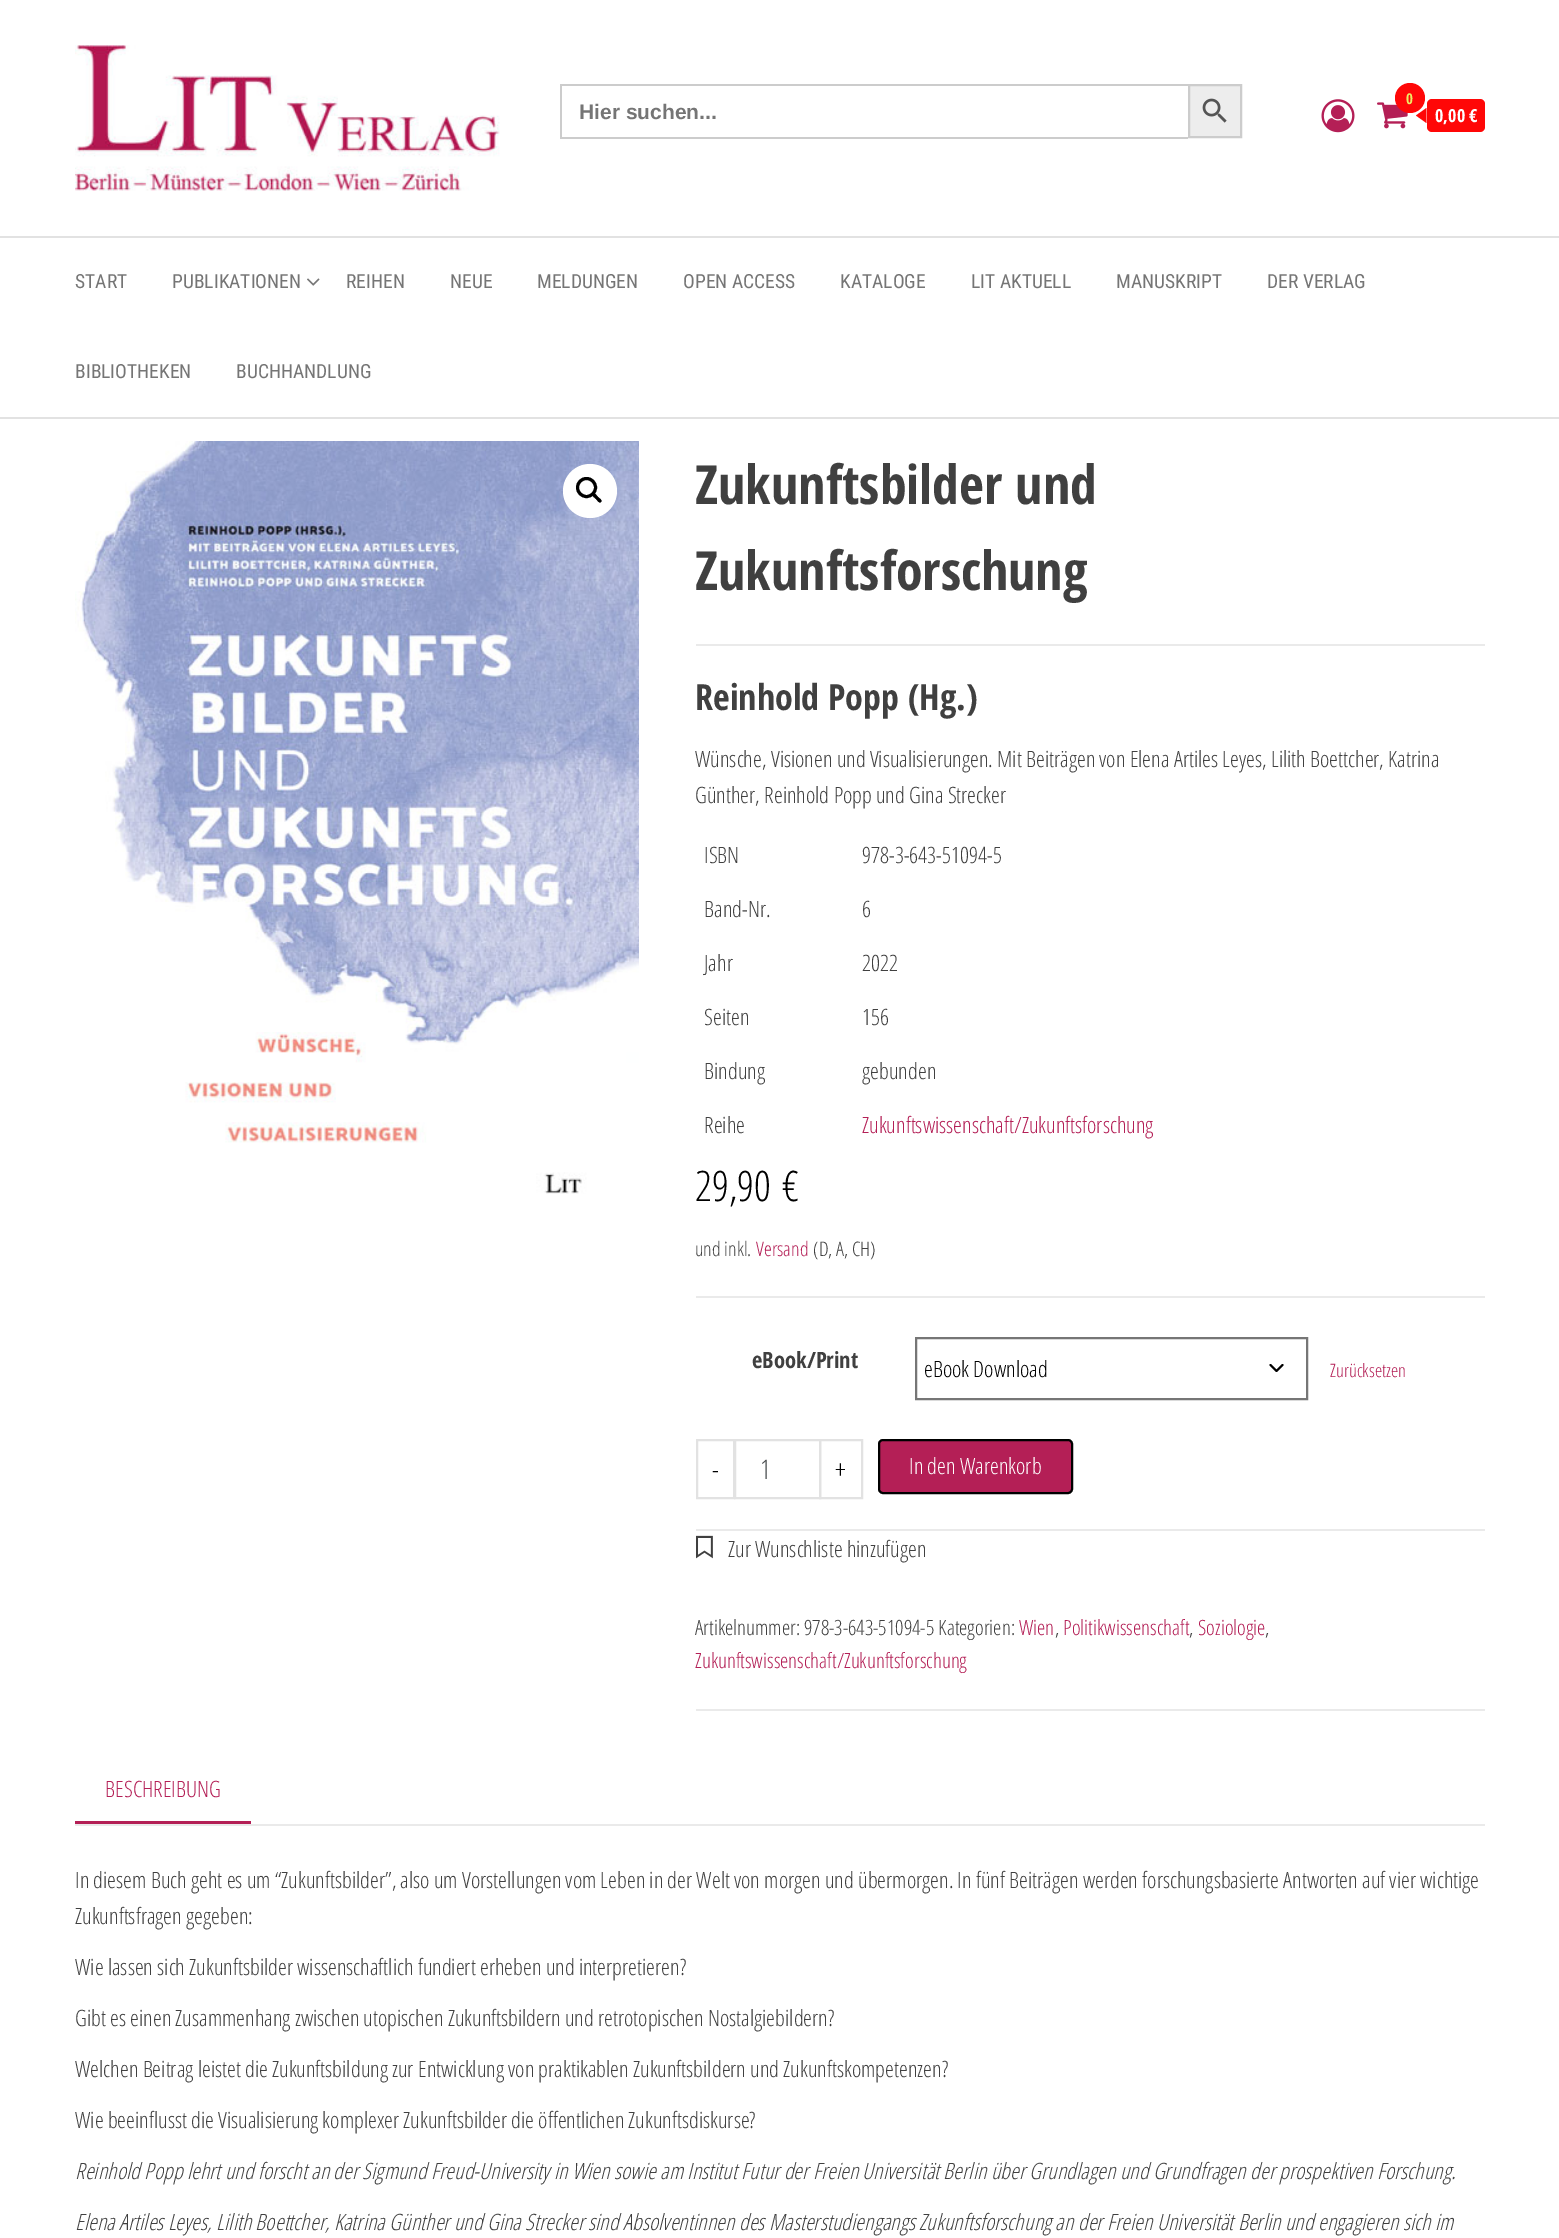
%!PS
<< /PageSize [1559 2238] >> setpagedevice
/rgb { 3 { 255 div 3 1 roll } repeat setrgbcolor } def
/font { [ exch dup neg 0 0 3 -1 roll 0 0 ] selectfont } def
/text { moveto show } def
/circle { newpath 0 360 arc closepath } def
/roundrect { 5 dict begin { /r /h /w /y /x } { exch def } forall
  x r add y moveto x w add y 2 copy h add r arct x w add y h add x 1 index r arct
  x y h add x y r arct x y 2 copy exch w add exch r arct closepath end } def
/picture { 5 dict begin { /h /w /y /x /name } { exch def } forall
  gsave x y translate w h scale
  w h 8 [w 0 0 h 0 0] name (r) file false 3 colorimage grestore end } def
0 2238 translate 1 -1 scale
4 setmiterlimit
255 255 255 rgb
0 0 1559 2238 rectfill
(img_01.rgb) 75 45 425 146 picture
204 204 204 rgb
560 84 628 2 rectfill
560 137 628 2 rectfill
560 84 2 54 rectfill
237 237 237 rgb
1189 85 moveto 52 0 rlineto 0 52 rlineto -52 0 rlineto closepath gsave fill grestore
204 204 204 rgb
2 setlinewidth
stroke
(img_02.rgb) 1202 98 25 25 picture
(img_03.rgb) 1321 99 34 34 picture
(img_04.rgb) 1377 102 31 27 picture
255 7 7 rgb
1410 98 15 circle fill
1427 99 58 33 5 roundrect fill
1426.5 108 moveto 0 15 rlineto -10.5 -7.5 rlineto closepath fill
226 226 226 rgb
0 236 1559 2 rectfill
0 417 1559 2 rectfill
(img_05.rgb) 307 278 13 8 picture
(img_06.rgb) 75 441 564 753 picture
255 255 255 rgb
590 491 27 circle fill
0 0 0 rgb
3 setlinewidth
586.5 487.5 9 circle stroke
593 493.5 moveto 1.5 -1.5 4 2.5 5 3.5 rcurveto 1 1 5 3.5 3 5 rcurveto -1.5 2 -4 -2 -5 -3 rcurveto -1 -1 -5 -3.5 -3 -5.5 rcurveto closepath fill
234 234 234 rgb
696 644 789 2 rectfill
696 1296 789 2 rectfill
696 1529 789 2 rectfill
0 0 0 rgb
2 setlinewidth
1 setlinecap
1 setlinejoin
1270.5 1365 moveto 6 6 rlineto 6 -6 rlineto stroke
118 118 118 rgb
0 setlinecap
0 setlinejoin
916 1338 391 61 rectstroke
226 226 226 rgb
697 1440 37 58 rectstroke
735 1440 85 58 rectstroke
820 1440 42 58 rectstroke
180 31 86 rgb
879 1440 193 53 4 roundrect gsave fill grestore
0 0 0 rgb
stroke
(img_07.rgb) 696 1535 17 24 picture
234 234 234 rgb
696 1709 789 2 rectfill
75 1824 1410 2 rectfill
180 31 86 rgb
75 1821 176 3 rectfill
/LiberationSans-Bold 21 font
117 117 117 rgb
(Hier suchen...) 579 119 text
/OpenSansCondensed-Bold 15 font
237 237 101 rgb
(0) 1406 104 text
/OpenSansCondensed-Bold 18 font
255 255 255 rgb
(0,00 €) 1435 122 text
/RobotoCondensed-Regular 19.5 font
117 117 117 rgb
(START) 75 288 text
(PUBLIKATIONEN) 172 288 text
(REIHEN) 346 288 text
(NEUE) 450 288 text
(MELDUNGEN) 537 288 text
(OPEN ACCESS) 683 288 text
(KATALOGE) 840 288 text
(LIT AKTUELL) 971 288 text
(MANUSKRIPT) 1116 288 text
(DER VERLAG) 1267 288 text
(BIBLIOTHEKEN) 75 378 text
(BUCHHANDLUNG) 236 378 text
/OpenSansCondensed-Bold 54 font
64 64 64 rgb
(Zukunftsbilder und) 695 504 text
(Zukunftsforschung) 695 590 text
/OpenSansCondensed-Bold 36 font
(Reinhold Popp \(Hg.\)) 695 710 text
/OpenSansCondensed-Light 22.5 font
(Wünsche, Visionen und Visualisierungen. Mit Beiträgen von Elena Artiles Leyes, Lilith Boettcher, Katrina) 695 767 text
(Günther, Reinhold Popp und Gina Strecker) 695 803 text
(ISBN) 704 863 text
(978-3-643-51094-5) 862 863 text
(Band-Nr.) 704 917 text
(6) 862 917 text
(Jahr) 704 971 text
(2022) 862 971 text
(Seiten) 704 1025 text
(156) 862 1025 text
(Bindung) 704 1079 text
(gebunden) 862 1079 text
(Reihe) 704 1133 text
180 31 86 rgb
(Zukunftswissenschaft/Zukunftsforschung) 862 1133 text
/OpenSansCondensed-Light 42 font
0 0 0 rgb
(29,90) 695 1201 text
(€) 782 1201 text
/OpenSansCondensed-Light 20 font
64 64 64 rgb
(und inkl.) 695 1256 text
180 31 86 rgb
(Versand) 756 1256 text
64 64 64 rgb
(\(D, A, CH\)) 813 1256 text
/OpenSansCondensed-Bold 22.5 font
(eBook/Print) 752 1368 text
/OpenSansCondensed-Light 22.5 font
0 0 0 rgb
(eBook Download) 924 1377 text
/OpenSansCondensed-Light 18.5 font
180 31 86 rgb
(Zurücksetzen) 1330 1377 text
/OpenSansCondensed-Light 27 font
0 0 0 rgb
(-) 712 1479 text
70 74 76 rgb
(1) 760 1479 text
0 0 0 rgb
(+) 835 1479 text
/OpenSansCondensed-Light 22.5 font
255 255 255 rgb
(In den Warenkorb) 909 1474 text
64 64 64 rgb
(Zur Wunschliste hinzufügen) 728 1557 text
/OpenSansCondensed-Light 21 font
(Artikelnummer: 978-3-643-51094-5 Kategorien:) 695 1635 text
180 31 86 rgb
(Wien) 1019 1635 text
64 64 64 rgb
(,) 1055 1635 text
180 31 86 rgb
(Politikwissenschaft) 1063 1635 text
64 64 64 rgb
(,) 1189 1635 text
180 31 86 rgb
(Soziologie) 1198 1635 text
64 64 64 rgb
(,) 1265 1635 text
180 31 86 rgb
(Zukunftswissenschaft/Zukunftsforschung) 695 1668 text
/OpenSansCondensed-Light 22.5 font
(BESCHREIBUNG) 105 1797 text
64 64 64 rgb
(In diesem Buch geht es um “Zukunftsbilder”, also um Vorstellungen vom Leben in der Welt von morgen und übermorgen. In fünf Beiträgen werden forschungsbasierte Antworten auf vier wichtige) 75 1888 text
(Zukunftsfragen gegeben:) 75 1924 text
(Wie lassen sich Zukunftsbilder wissenschaftlich fundiert erheben und interpretieren?) 75 1975 text
(Gibt es einen Zusammenhang zwischen utopischen Zukunftsbildern und retrotopischen Nostalgiebildern?) 75 2026 text
(Welchen Beitrag leistet die Zukunftsbildung zur Entwicklung von praktikablen Zukunftsbildern und Zukunftskompetenzen?) 75 2077 text
(Wie beeinflusst die Visualisierung komplexer Zukunftsbilder die öffentlichen Zukunftsdiskurse?) 75 2128 text
/OpenSansCondensed-LightItalic 22.5 font
(Reinhold Popp lehrt und forscht an der Sigmund Freud-University in Wien sowie am Institut Futur der Freien Universität Berlin über Grundlagen und Grundfragen der prospektiven Forschung.) 75 2179 text
(Elena Artiles Leyes, Lilith Boettcher, Katrina Günther und Gina Strecker sind Absolventinnen des Masterstudiengangs Zukunftsforschung an der Freien Universität Berlin und engagieren sich im) 75 2230 text
showpage
